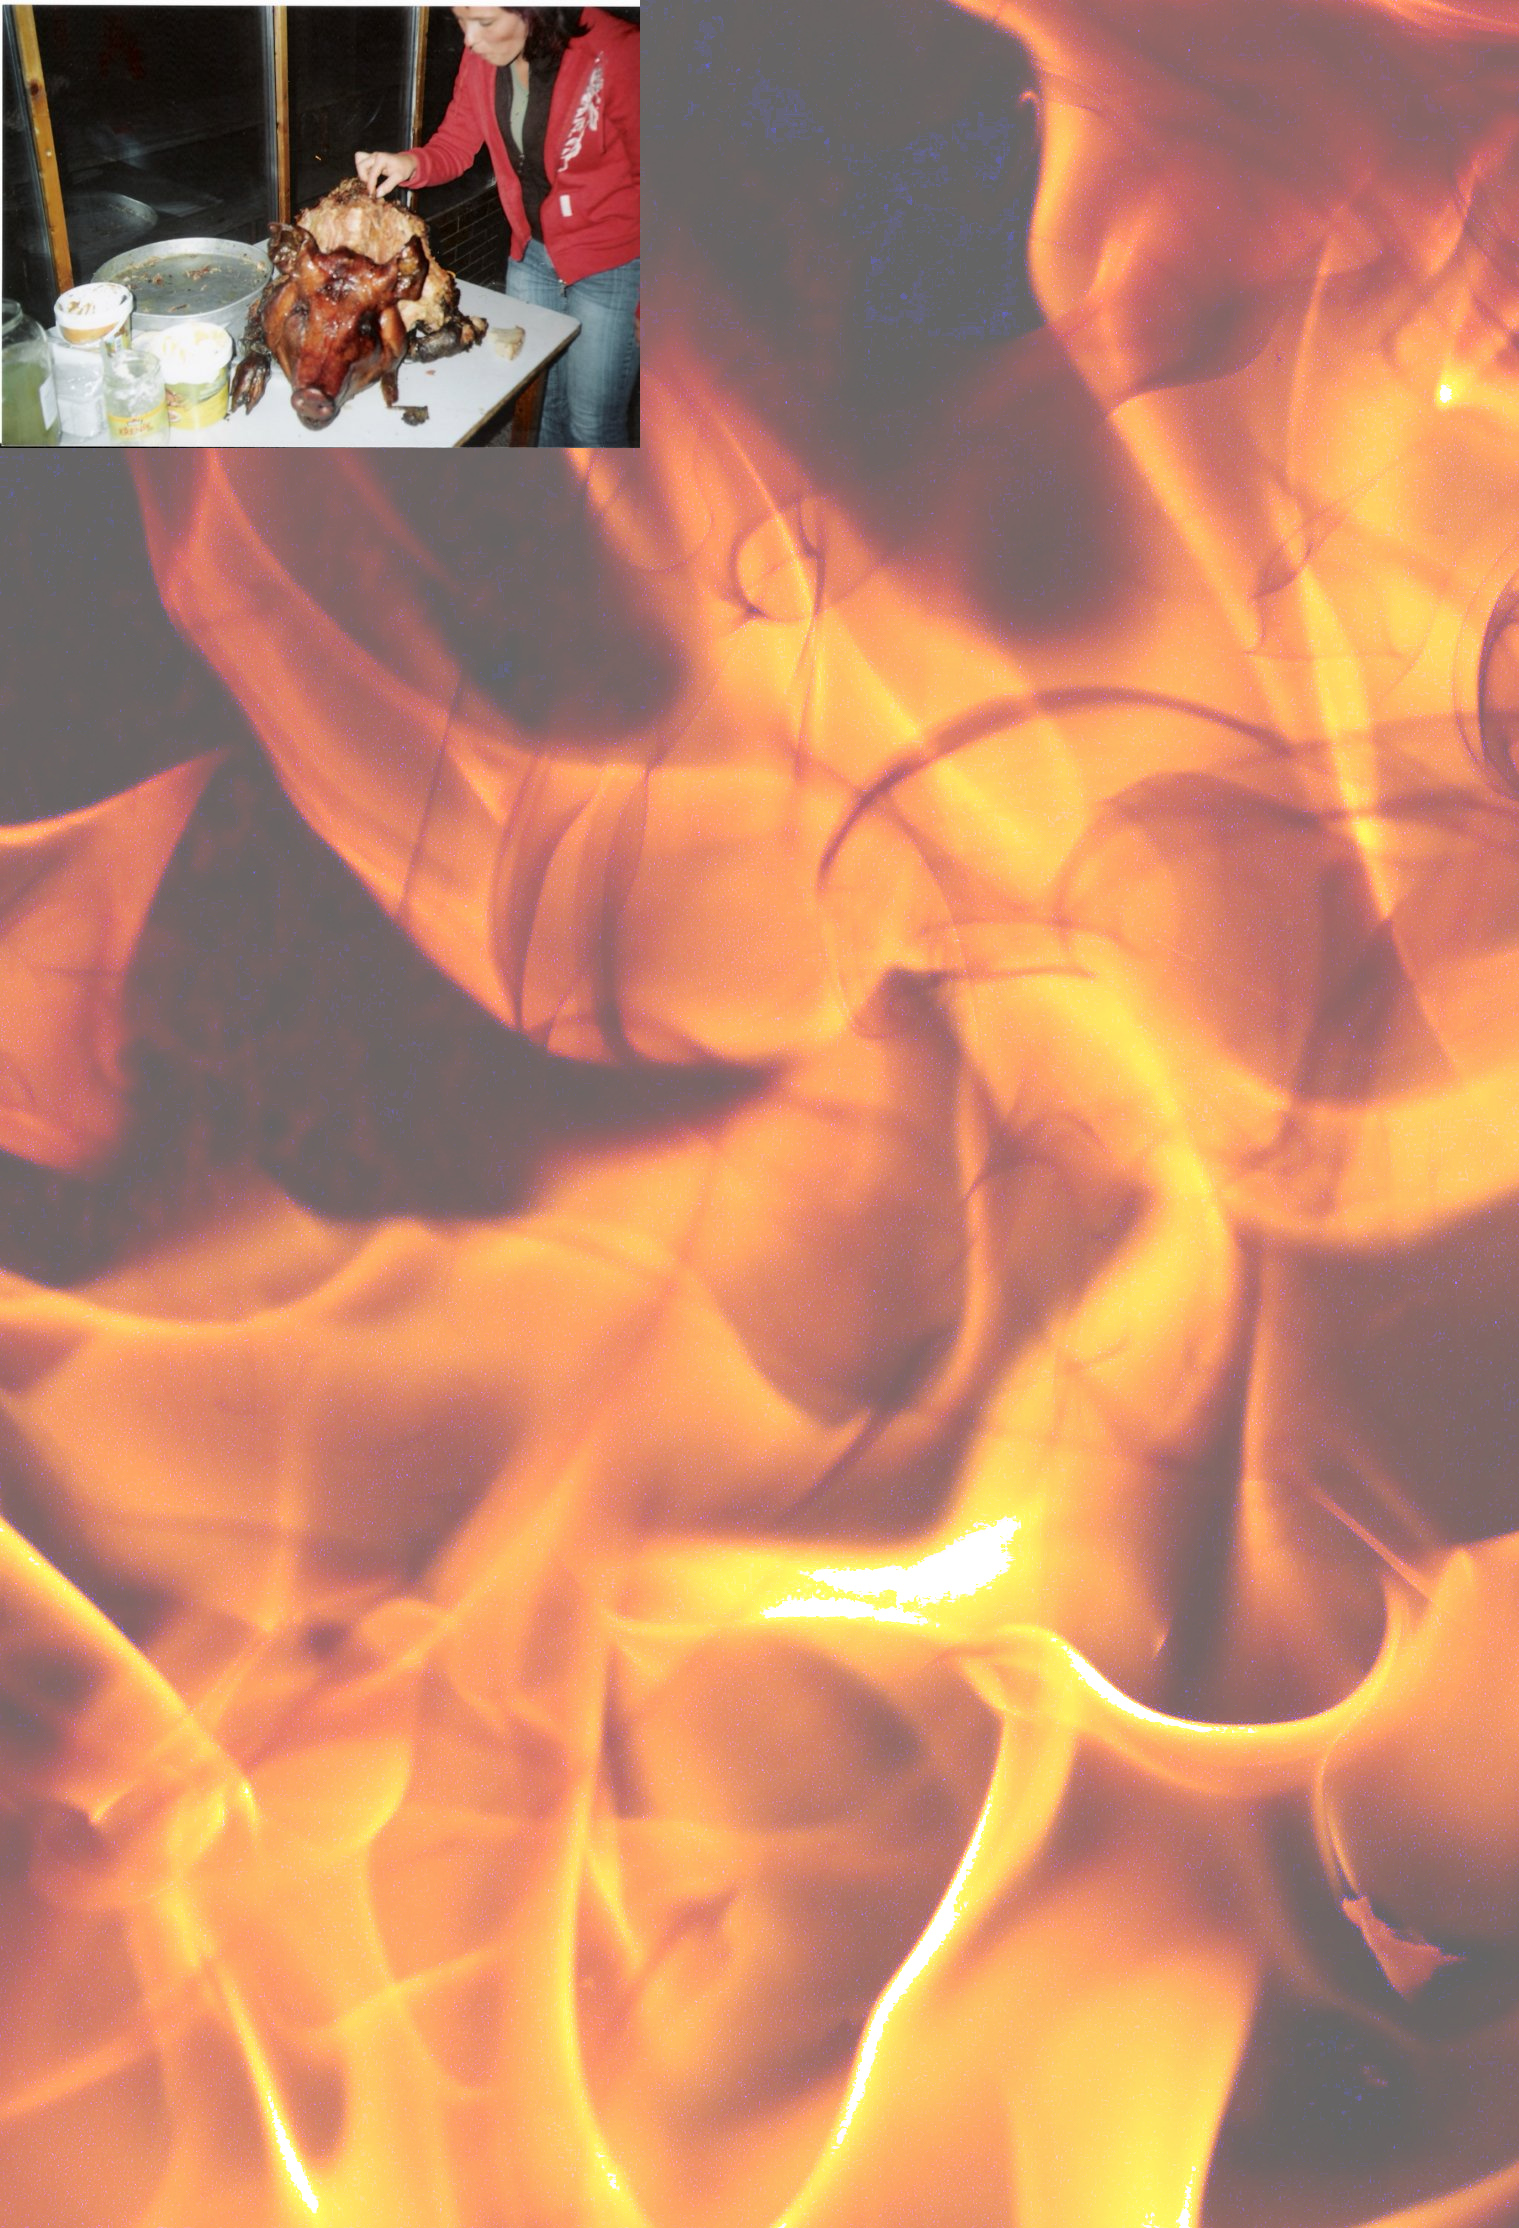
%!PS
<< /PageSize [1519 2228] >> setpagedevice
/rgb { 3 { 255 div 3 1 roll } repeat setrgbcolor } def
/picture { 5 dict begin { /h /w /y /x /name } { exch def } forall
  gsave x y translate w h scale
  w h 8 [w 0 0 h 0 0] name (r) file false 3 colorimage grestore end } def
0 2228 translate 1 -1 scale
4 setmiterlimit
255 255 255 rgb
0 0 1519 2228 rectfill
(img_01.rgb) 0 0 1519 2228 picture
(img_02.rgb) 0 0 640 448 picture
showpage
